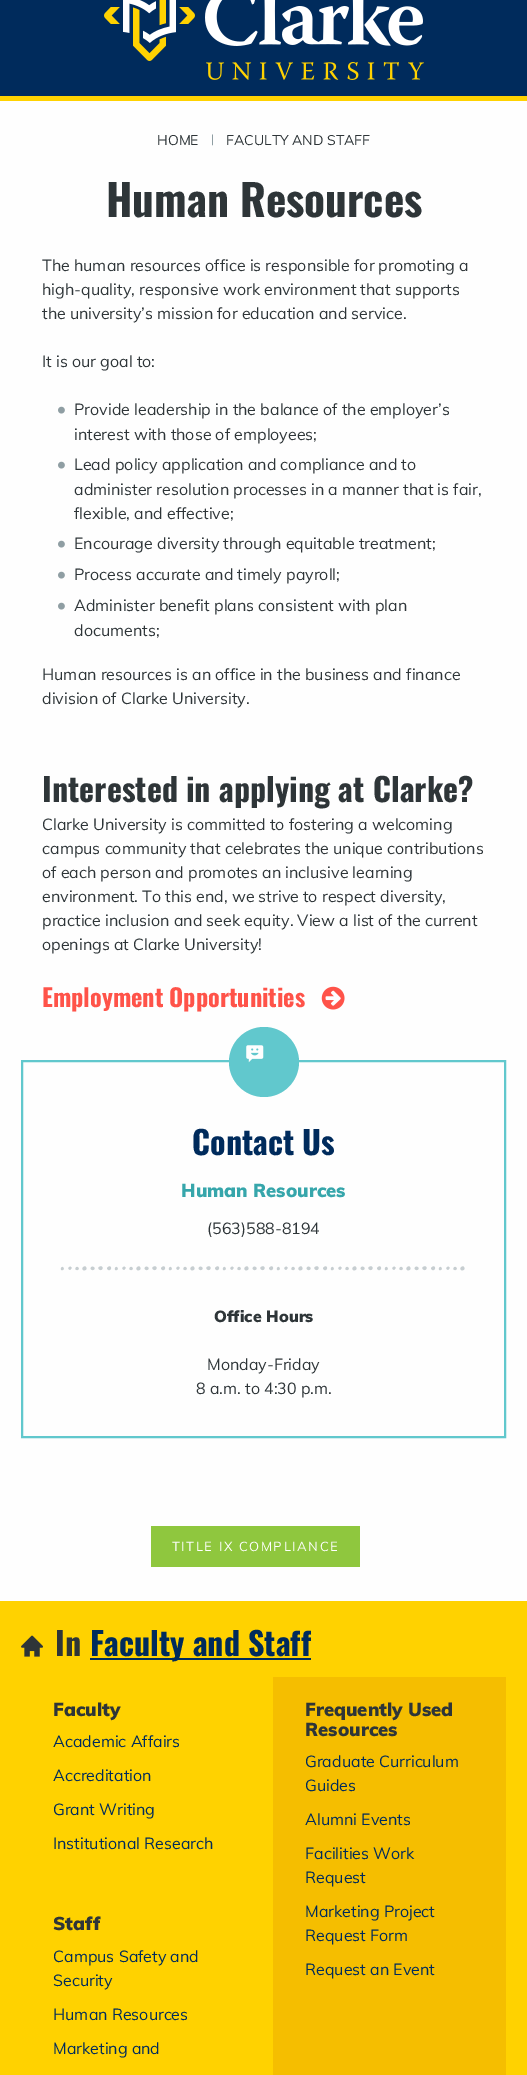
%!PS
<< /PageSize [527 2075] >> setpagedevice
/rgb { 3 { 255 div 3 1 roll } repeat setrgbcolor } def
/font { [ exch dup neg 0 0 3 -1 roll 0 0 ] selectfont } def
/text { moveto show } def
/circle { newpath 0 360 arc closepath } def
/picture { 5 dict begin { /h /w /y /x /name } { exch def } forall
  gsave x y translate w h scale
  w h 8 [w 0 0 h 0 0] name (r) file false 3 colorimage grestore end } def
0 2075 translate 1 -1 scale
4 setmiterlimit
254 254 254 rgb
0 0 527 2075 rectfill
0 43 92 rgb
0 0 527 96 rectfill
255 210 0 rgb
0 96 527 5 rectfill
(img_01.rgb) 104 0 320 80 picture
(img_02.rgb) 58 406 7 8 picture
(img_02.rgb) 58 461 7 8 picture
(img_02.rgb) 58 540 7 8 picture
(img_02.rgb) 58 571 7 8 picture
(img_02.rgb) 58 602 7 8 picture
(img_03.rgb) 321 986 24 24 picture
97 200 205 rgb
2 setlinewidth
22 1061 483 376 rectstroke
264 1062 35 circle fill
(img_04.rgb) 246 1045 18 18 picture
(img_05.rgb) 60 1266 405 5 picture
143 199 62 rgb
151 1526 209 41 rectfill
255 210 0 rgb
0 1601 527 474 rectfill
(img_06.rgb) 21 1635 22 22 picture
0 43 92 rgb
90 1658 221 2 rectfill
245 190 0 rgb
273 1677 233 398 rectfill
/Muli-Regular 14 font
46 53 56 rgb
(HOME) 157 145 text
/Muli-Regular 12 font
143 158 163 rgb
(|) 211 143 text
/Muli-Regular 14 font
46 53 56 rgb
(FACULTY AND STAFF) 226 145 text
/Oswald-Bold 43.25 font
(Human Resources) 106 217 text
/Muli-Regular 16 font
(The human resources office is responsible for promoting a) 42 271 text
(high-quality, responsive work environment that supports) 42 295 text
(the university’s mission for education and service.) 42 319 text
(It is our goal to:) 42 367 text
(Provide leadership in the balance of the employer’s) 74 415 text
(interest with those of employees;) 74 440 text
(Lead policy application and compliance and to) 74 470 text
(administer resolution processes in a manner that is fair,) 74 495 text
(flexible, and effective;) 74 519 text
(Encourage diversity through equitable treatment;) 74 549 text
(Process accurate and timely payroll;) 74 580 text
(Administer benefit plans consistent with plan) 74 611 text
(documents;) 74 636 text
(Human resources is an office in the business and finance) 42 680 text
(division of Clarke University.) 42 704 text
/Oswald-Bold 32.1 font
(Interested in applying at Clarke?) 42 802 text
/Muli-Regular 16 font
(Clarke University is committed to fostering a welcoming) 42 830 text
(campus community that celebrates the unique contributions) 42 854 text
(of each person and promotes an inclusive learning) 42 878 text
(environment. To this end, we strive to respect diversity,) 42 902 text
(practice inclusion and seek equity. View a list of the current) 42 926 text
(openings at Clarke University!) 42 950 text
/Oswald-Bold 24.25 font
255 83 73 rgb
(Employment Opportunities) 42 1007 text
/Oswald-Bold 32.1 font
0 43 92 rgb
(Contact Us) 192 1155 text
/Muli-Black 18.5 font
54 166 171 rgb
(Human Resources) 181 1197 text
/Muli-Regular 16 font
46 53 56 rgb
(\(563\)588-8194) 207 1234 text
/Muli-Black 16 font
(Office Hours) 214 1322 text
/Muli-Regular 16 font
(Monday-Friday) 207 1370 text
(8 a.m. to 4:30 p.m.) 196 1394 text
/Muli-Regular 13 font
255 255 255 rgb
172 1551 moveto 1.6 0 (TITLE IX COMPLIANCE) ashow
/Oswald-Bold 32.1 font
46 53 56 rgb
(In) 55 1656 text
0 43 92 rgb
(Faculty and Staff) 90 1656 text
/Muli-Black 18.5 font
46 53 56 rgb
(Faculty) 53 1716 text
/Muli-Regular 16 font
0 43 92 rgb
(Academic Affairs) 53 1747 text
(Accreditation) 53 1781 text
(Grant Writing) 53 1815 text
(Institutional Research) 53 1849 text
/Muli-Black 18.5 font
46 53 56 rgb
(Staff) 53 1930 text
/Muli-Regular 16 font
0 43 92 rgb
(Campus Safety and) 53 1962 text
(Security) 53 1986 text
(Human Resources) 53 2020 text
(Marketing and) 53 2054 text
/Muli-Black 18.5 font
46 53 56 rgb
(Frequently Used) 305 1716 text
(Resources) 305 1736 text
/Muli-Regular 16 font
0 43 92 rgb
(Graduate Curriculum) 305 1767 text
(Guides) 305 1791 text
(Alumni Events) 305 1825 text
(Facilities Work) 305 1859 text
(Request) 305 1883 text
(Marketing Project) 305 1917 text
(Request Form) 305 1941 text
(Request an Event) 305 1975 text
showpage
